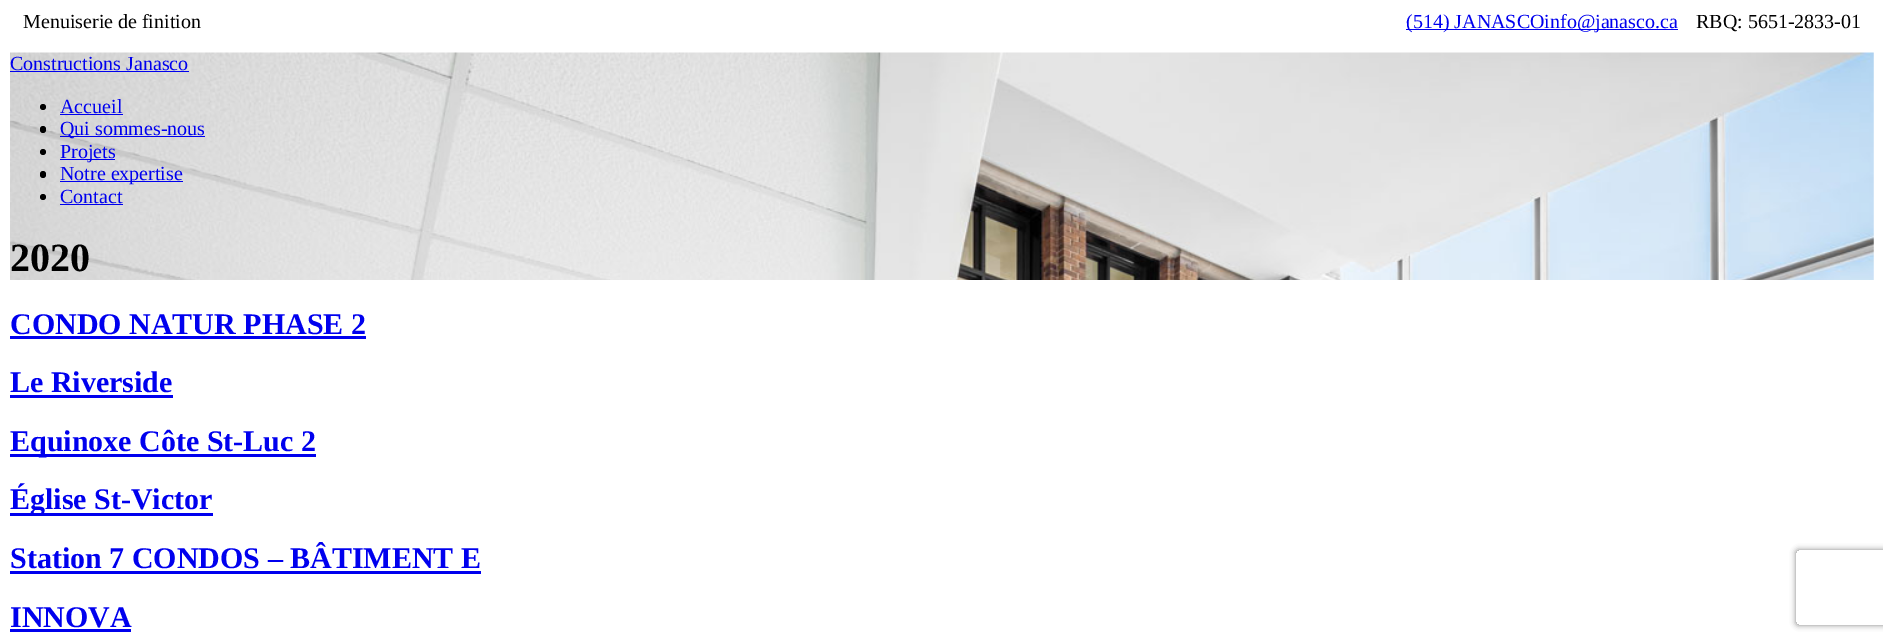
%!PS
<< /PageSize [1883 642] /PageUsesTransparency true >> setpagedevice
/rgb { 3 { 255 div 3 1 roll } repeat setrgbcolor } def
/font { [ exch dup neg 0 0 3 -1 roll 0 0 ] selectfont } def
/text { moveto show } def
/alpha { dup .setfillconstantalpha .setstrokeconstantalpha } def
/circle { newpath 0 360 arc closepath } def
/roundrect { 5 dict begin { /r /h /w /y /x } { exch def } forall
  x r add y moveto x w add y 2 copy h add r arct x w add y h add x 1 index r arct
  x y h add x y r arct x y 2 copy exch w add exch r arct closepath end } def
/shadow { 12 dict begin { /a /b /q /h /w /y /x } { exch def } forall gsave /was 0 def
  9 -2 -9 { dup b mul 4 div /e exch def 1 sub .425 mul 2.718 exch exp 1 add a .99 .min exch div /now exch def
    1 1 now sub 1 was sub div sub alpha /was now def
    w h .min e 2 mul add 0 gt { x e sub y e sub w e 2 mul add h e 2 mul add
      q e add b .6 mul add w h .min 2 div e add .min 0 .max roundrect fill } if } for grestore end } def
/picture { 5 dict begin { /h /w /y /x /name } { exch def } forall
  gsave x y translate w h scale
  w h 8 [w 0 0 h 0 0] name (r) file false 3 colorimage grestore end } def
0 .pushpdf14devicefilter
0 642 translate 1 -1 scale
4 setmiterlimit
255 255 255 rgb
0 0 1883 642 rectfill
0 0 238 rgb
1406 29 272 1 rectfill
(img_01.rgb) 10 52 1864 228 picture
10 71 179 1 rectfill
0 0 0 rgb
43 107 3 circle fill
0 0 238 rgb
60 114 63 1 rectfill
0 0 0 rgb
40 126 6 7 3 roundrect fill
0 0 238 rgb
60 136 145 1 rectfill
0 0 0 rgb
43 152 3 circle fill
0 0 238 rgb
60 159 55 1 rectfill
0 0 0 rgb
40 171 6 7 3 roundrect fill
0 0 238 rgb
60 181 123 1 rectfill
0 0 0 rgb
43 197 3 circle fill
0 0 238 rgb
60 204 63 1 rectfill
10 336 356 3 rectfill
10 395 163 3 rectfill
10 454 306 3 rectfill
10 513 203 3 rectfill
10 571 471 3 rectfill
10 629 121 3 rectfill
gsave
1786 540 moveto 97 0 rlineto 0 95 rlineto -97 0 rlineto closepath 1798.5 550 moveto 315 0 rlineto 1.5 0 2.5 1 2.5 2.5 rcurveto 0 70 rlineto 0 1.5 -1 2.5 -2.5 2.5 rcurveto -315 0 rlineto -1.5 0 -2.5 -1 -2.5 -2.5 rcurveto 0 -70 rlineto 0 -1.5 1 -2.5 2.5 -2.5 rcurveto closepath eoclip newpath
128 128 128 rgb
1796 550 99 75 2.5 3 1 shadow
grestore
/LiberationSerif-Regular 20 font
0 0 0 rgb
(Menuiserie de finition) 23 28 text
0 0 238 rgb
(\(514\) JANASCOinfo@janasco.ca) 1406 28 text
0 0 0 rgb
(RBQ: 5651-2833-01) 1696 28 text
0 0 238 rgb
(Constructions Janasco) 10 70 text
(Accueil) 60 113 text
(Qui sommes-nous) 60 135 text
(Projets) 60 158 text
(Notre expertise) 60 180 text
(Contact) 60 203 text
/LiberationSerif-Bold 40 font
0 0 0 rgb
(2020) 10 271 text
/LiberationSerif-Bold 30 font
0 0 238 rgb
(CONDO NATUR PHASE 2) 10 334 text
(Le Riverside) 10 392 text
(Equinoxe Côte St-Luc 2) 10 451 text
(Église St-Victor) 10 509 text
(Station 7 CONDOS – BÂTIMENT E) 10 568 text
(INNOVA) 10 627 text
.poppdf14devicefilter showpage
